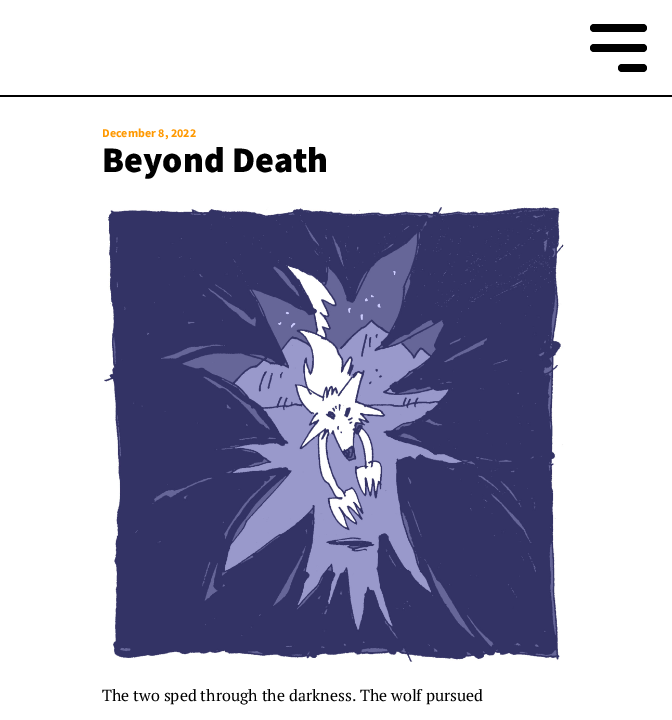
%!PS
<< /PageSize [672 720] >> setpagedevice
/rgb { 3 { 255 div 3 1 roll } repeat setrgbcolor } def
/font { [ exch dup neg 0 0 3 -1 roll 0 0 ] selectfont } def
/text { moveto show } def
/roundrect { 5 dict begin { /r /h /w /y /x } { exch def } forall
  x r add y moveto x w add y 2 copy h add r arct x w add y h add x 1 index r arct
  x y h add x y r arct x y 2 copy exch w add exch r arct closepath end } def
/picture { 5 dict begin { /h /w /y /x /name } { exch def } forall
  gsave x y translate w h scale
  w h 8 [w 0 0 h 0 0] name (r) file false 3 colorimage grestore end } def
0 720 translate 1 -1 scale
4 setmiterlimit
255 255 255 rgb
0 0 672 720 rectfill
0 0 0 rgb
0 95 672 2 rectfill
590 24 57 8 4 roundrect fill
590 44 57 8 4 roundrect fill
618 64 29 8 4 roundrect fill
(img_01.rgb) 104 207 460 455 picture
/SourceSansPro-Bold 12 font
255 153 0 rgb
(December 8, 2022) 102 137 text
/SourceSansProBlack-Black 36 font
0 0 0 rgb
(Beyond Death) 102 172 text
/PTSerif-Regular 16 font
(The two sped through the darkness. The wolf pursued) 102 701 text
showpage
